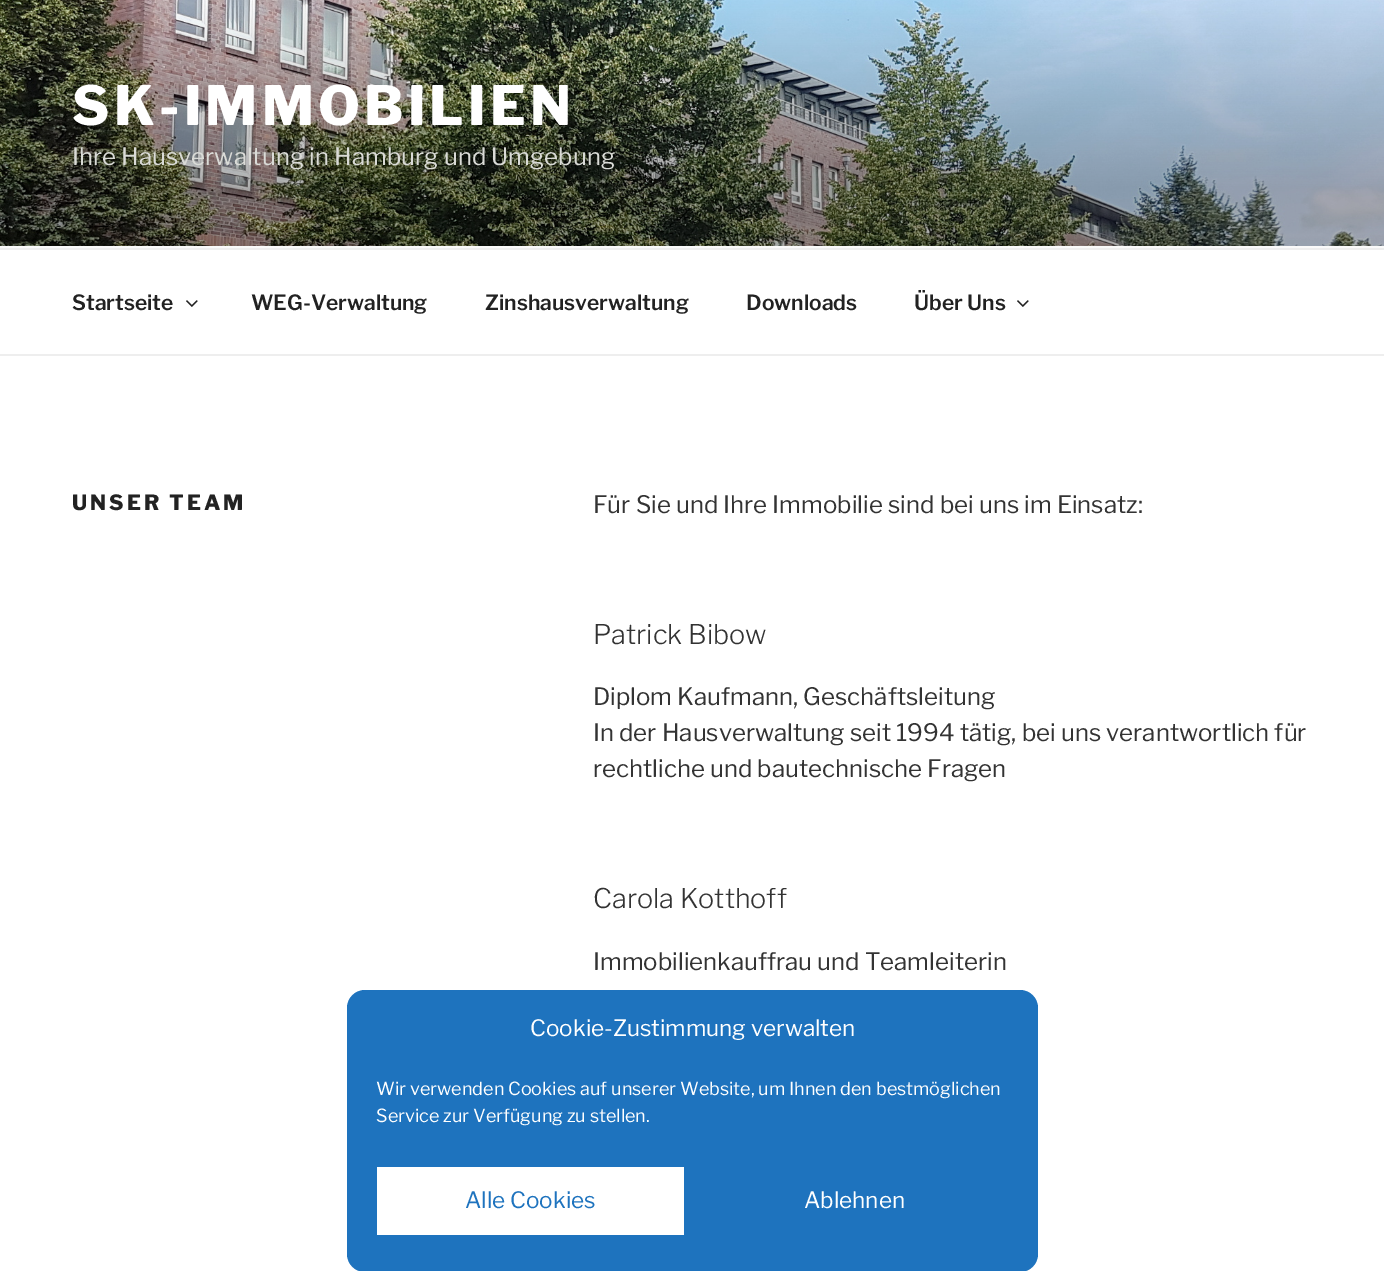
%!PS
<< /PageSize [1384 1271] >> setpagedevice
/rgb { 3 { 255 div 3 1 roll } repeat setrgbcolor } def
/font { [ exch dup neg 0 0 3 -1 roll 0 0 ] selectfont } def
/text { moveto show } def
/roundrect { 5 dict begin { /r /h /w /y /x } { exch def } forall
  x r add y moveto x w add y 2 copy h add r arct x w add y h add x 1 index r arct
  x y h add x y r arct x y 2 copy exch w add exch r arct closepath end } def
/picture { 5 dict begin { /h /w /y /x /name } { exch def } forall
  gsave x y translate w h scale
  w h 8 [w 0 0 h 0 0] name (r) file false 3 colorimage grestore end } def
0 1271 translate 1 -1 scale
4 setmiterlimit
255 255 255 rgb
0 0 1384 1271 rectfill
250 250 250 rgb
0 246 1384 2 rectfill
(img_01.rgb) 0 0 1384 246 picture
238 238 238 rgb
0 248 1384 2 rectfill
0 354 1384 2 rectfill
(img_02.rgb) 186 300 12 7 picture
(img_02.rgb) 1017 300 12 7 picture
30 115 190 rgb
347 990 691 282 18 roundrect fill
255 255 255 rgb
377 1167 307 68 rectfill
/LibreFranklin-Thin 54 font
72 125 moveto 4.25 0 (SK-IMMOBILIEN) ashow
/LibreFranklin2-Thin 24 font
218 219 215 rgb
(Ihre Hausverwaltung in Hamburg und Umgebung) 72 165 text
/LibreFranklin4-Thin 21 font
34 34 34 rgb
(Startseite) 72 310 text
(WEG-Verwaltung) 251 310 text
(Zinshausverwaltung) 485 310 text
(Downloads) 746 310 text
(Über Uns) 914 310 text
/LibreFranklin-Thin 21 font
72 510 moveto 3 0 (UNSER TEAM) ashow
/LibreFranklin2-Thin 24 font
51 51 51 rgb
(Für Sie und Ihre Immobilie sind bei uns im Einsatz:) 593 513 text
/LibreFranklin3-Thin 27 font
(Patrick Bibow) 593 644 text
/LibreFranklin2-Thin 24 font
(Diplom Kaufmann, Geschäftsleitung) 593 705 text
(In der Hausverwaltung seit 1994 tätig, bei uns verantwortlich für) 593 741 text
(rechtliche und bautechnische Fragen) 593 777 text
/LibreFranklin3-Thin 27 font
(Carola Kotthoff) 593 908 text
/LibreFranklin2-Thin 24 font
(Immobilienkauffrau und Teamleiterin) 593 970 text
/LibreFranklin2-Thin 22.5 font
255 255 255 rgb
(Cookie-Zustimmung verwalten) 530 1036 text
/LibreFranklin2-Thin 18 font
(Wir verwenden Cookies auf unserer Website, um Ihnen den bestmöglichen) 376 1095 text
(Service zur Verfügung zu stellen.) 376 1122 text
/LibreFranklin2-Thin 22.5 font
30 115 190 rgb
(Alle Cookies) 465 1208 text
255 255 255 rgb
(Ablehnen) 804 1208 text
showpage
